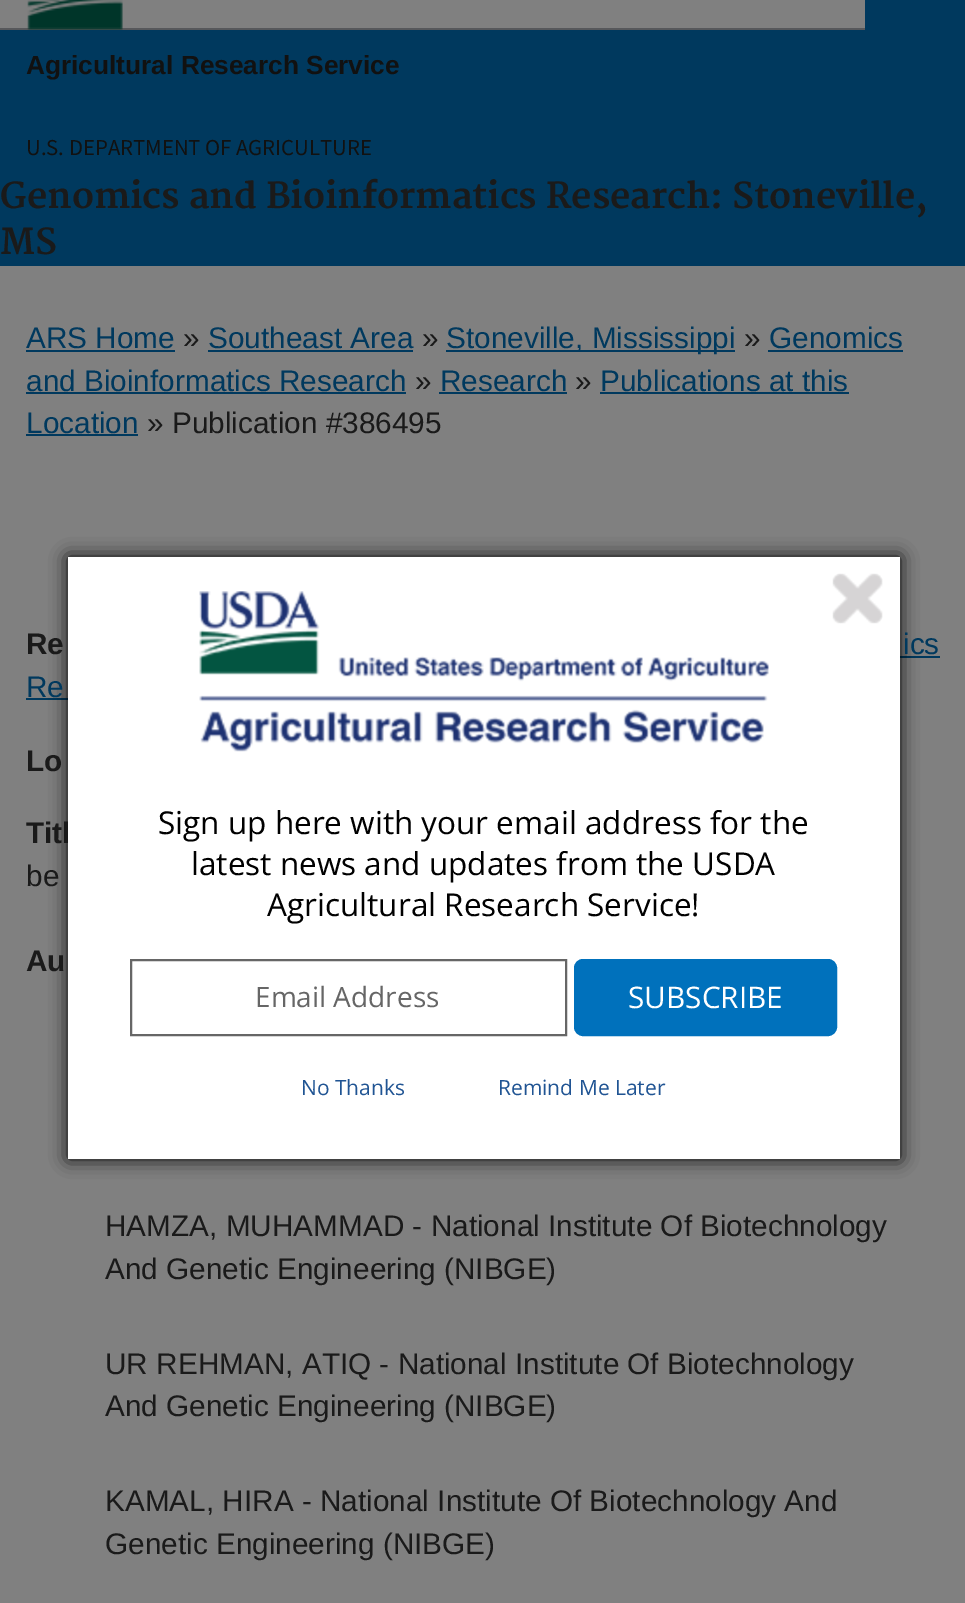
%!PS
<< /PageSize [965 1603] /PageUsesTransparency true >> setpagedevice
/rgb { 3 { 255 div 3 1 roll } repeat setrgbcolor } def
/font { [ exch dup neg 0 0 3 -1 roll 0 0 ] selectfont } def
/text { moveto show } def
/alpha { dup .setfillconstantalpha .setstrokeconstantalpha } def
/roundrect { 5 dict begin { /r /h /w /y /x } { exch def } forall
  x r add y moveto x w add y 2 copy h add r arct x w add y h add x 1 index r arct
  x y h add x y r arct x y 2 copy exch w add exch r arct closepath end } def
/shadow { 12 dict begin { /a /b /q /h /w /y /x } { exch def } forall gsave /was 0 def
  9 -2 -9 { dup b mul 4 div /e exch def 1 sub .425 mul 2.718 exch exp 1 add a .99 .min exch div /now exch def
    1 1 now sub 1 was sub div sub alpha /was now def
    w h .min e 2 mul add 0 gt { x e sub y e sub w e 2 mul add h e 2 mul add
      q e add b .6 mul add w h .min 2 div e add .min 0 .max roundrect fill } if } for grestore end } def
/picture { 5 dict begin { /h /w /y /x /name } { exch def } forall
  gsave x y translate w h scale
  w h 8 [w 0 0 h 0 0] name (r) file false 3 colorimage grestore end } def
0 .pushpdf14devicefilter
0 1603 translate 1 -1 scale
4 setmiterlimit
128 128 128 rgb
0 0 965 1603 rectfill
87 88 91 rgb
0 28 865 2 rectfill
0 57 94 rgb
865 0 100 30 rectfill
(img_01.rgb) 27 0 96 30 picture
0 30 965 236 rectfill
26 350 149 2 rectfill
208 350 205 2 rectfill
446 350 289 2 rectfill
768 350 135 2 rectfill
26 392 380 2 rectfill
439 392 128 2 rectfill
600 392 249 2 rectfill
26 434 112 2 rectfill
900 656 40 2 rectfill
26 698 42 2 rectfill
0 0 0 rgb
68 557 832 602 0 9 1 shadow
/LiberationSans-Bold 26.25 font
17 17 17 rgb
(Agricultural Research Service) 26 74 text
/SourceSansPro-Regular 22.75 font
(U.S. DEPARTMENT OF AGRICULTURE) 26 155 text
/Merriweather-Bold 35 font
26 26 26 rgb
(Genomics and Bioinformatics Research: Stoneville,) 0 208 text
(MS) 0 254 text
/LiberationSans-Regular 29.75 font
0 57 94 rgb
(ARS Home) 26 348 text
26 26 26 rgb
(») 183 348 text
0 57 94 rgb
(Southeast Area) 208 348 text
26 26 26 rgb
(») 422 348 text
0 57 94 rgb
(Stoneville, Mississippi) 446 348 text
26 26 26 rgb
(») 744 348 text
0 57 94 rgb
(Genomics) 769 348 text
(and Bioinformatics Research) 26 391 text
26 26 26 rgb
(») 415 391 text
0 57 94 rgb
(Research) 440 391 text
26 26 26 rgb
(») 575 391 text
0 57 94 rgb
(Publications at this) 600 391 text
(Location) 26 433 text
26 26 26 rgb
(» Publication #386495) 147 433 text
/LiberationSans-Bold 29.75 font
(Re) 26 654 text
/LiberationSans-Regular 29.75 font
0 57 94 rgb
(ics) 903 654 text
(Re) 26 697 text
/LiberationSans-Bold 29.75 font
26 26 26 rgb
(Lo) 26 771 text
(Titl) 26 843 text
/LiberationSans-Regular 29.75 font
(be) 26 886 text
/LiberationSans-Bold 29.75 font
(Au) 26 971 text
/LiberationSans-Regular 29.75 font
(HAMZA, MUHAMMAD - National Institute Of Biotechnology) 105 1236 text
(And Genetic Engineering \(NIBGE\)) 105 1279 text
(UR REHMAN, ATIQ - National Institute Of Biotechnology) 105 1374 text
(And Genetic Engineering \(NIBGE\)) 105 1416 text
(KAMAL, HIRA - National Institute Of Biotechnology And) 105 1511 text
(Genetic Engineering \(NIBGE\)) 105 1554 text
255 255 255 rgb
68 557 832 602 rectfill
(img_02.rgb) 199 591 570 161 picture
(img_03.rgb) 832 573 51 51 picture
/OpenSans-Regular 31.5 font
0 0 0 rgb
(Sign up here with your email address for the) 158 834 text
(latest news and updates from the USDA) 191 875 text
(Agricultural Research Service!) 267 916 text
102 102 102 rgb
2 setlinewidth
131 960 435 75 rectstroke
/OpenSans-Regular 28 font
(Email Address) 255 1007 text
0 113 188 rgb
575 960 261 75 8 roundrect gsave fill grestore
stroke
/OpenSans-Regular 29.75 font
255 255 255 rgb
(SUBSCRIBE) 628 1008 text
/OpenSans-Regular 21 font
32 84 147 rgb
(No Thanks) 301 1095 text
(Remind Me Later) 498 1095 text
.poppdf14devicefilter showpage
